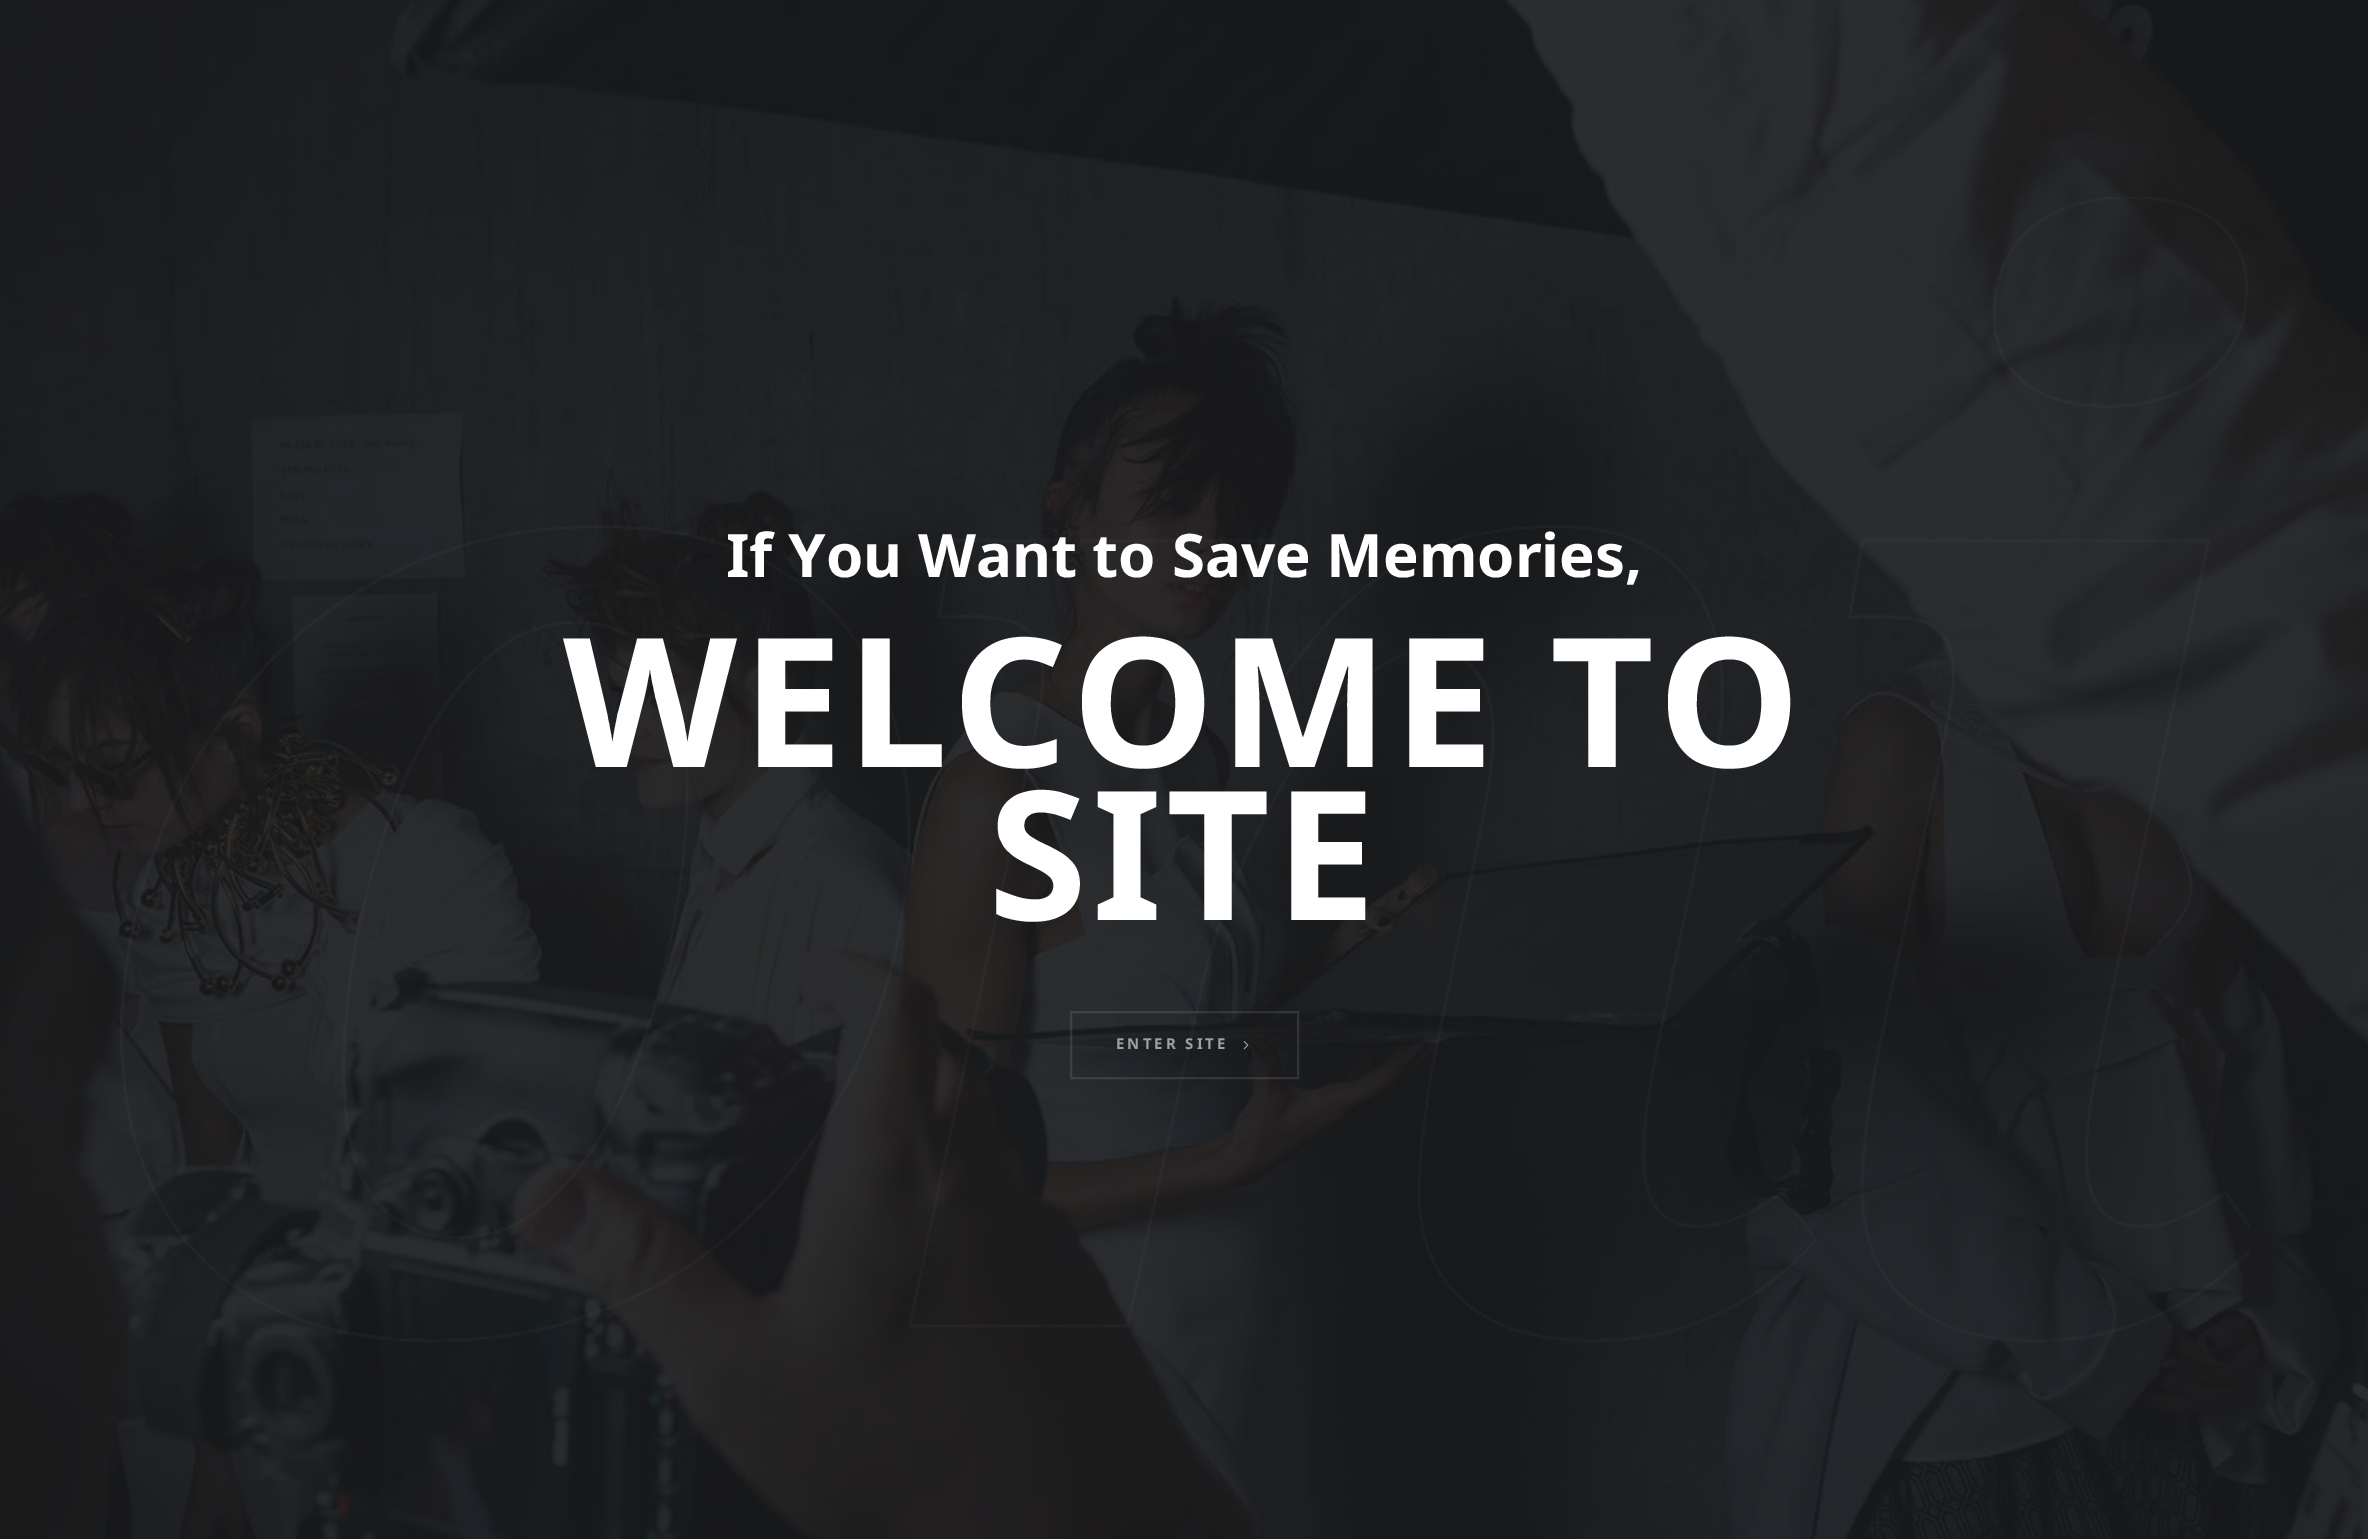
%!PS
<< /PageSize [2368 1539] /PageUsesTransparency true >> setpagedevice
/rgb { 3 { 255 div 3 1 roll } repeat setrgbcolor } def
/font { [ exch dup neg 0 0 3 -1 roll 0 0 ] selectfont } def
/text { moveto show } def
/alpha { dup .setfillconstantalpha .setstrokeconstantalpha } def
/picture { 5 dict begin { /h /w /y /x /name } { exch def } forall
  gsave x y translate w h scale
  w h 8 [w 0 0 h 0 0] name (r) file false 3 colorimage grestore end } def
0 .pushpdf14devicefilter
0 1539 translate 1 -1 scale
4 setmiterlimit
255 255 255 rgb
0 0 2368 1539 rectfill
(img_01.rgb) 0 0 2368 1539 picture
(img_02.rgb) 120 197 2130 1145 picture
0.1 alpha
2 setlinewidth
1071 1012 227 66 rectstroke
1 alpha
(img_03.rgb) 1243 1041 6 9 picture
/NotoSans-Bold 60 font
(If You Want to Save Memories,) 726 577 text
/NotoSans-Bold 180 font
563 767 moveto 4.5 0 (WELCOME TO) ashow
988 920 moveto 4.5 0 (SITE) ashow
/NotoSans-Bold 15 font
157 161 165 rgb
1116 1049 moveto 3 0 (ENTER SITE) ashow
.poppdf14devicefilter showpage
